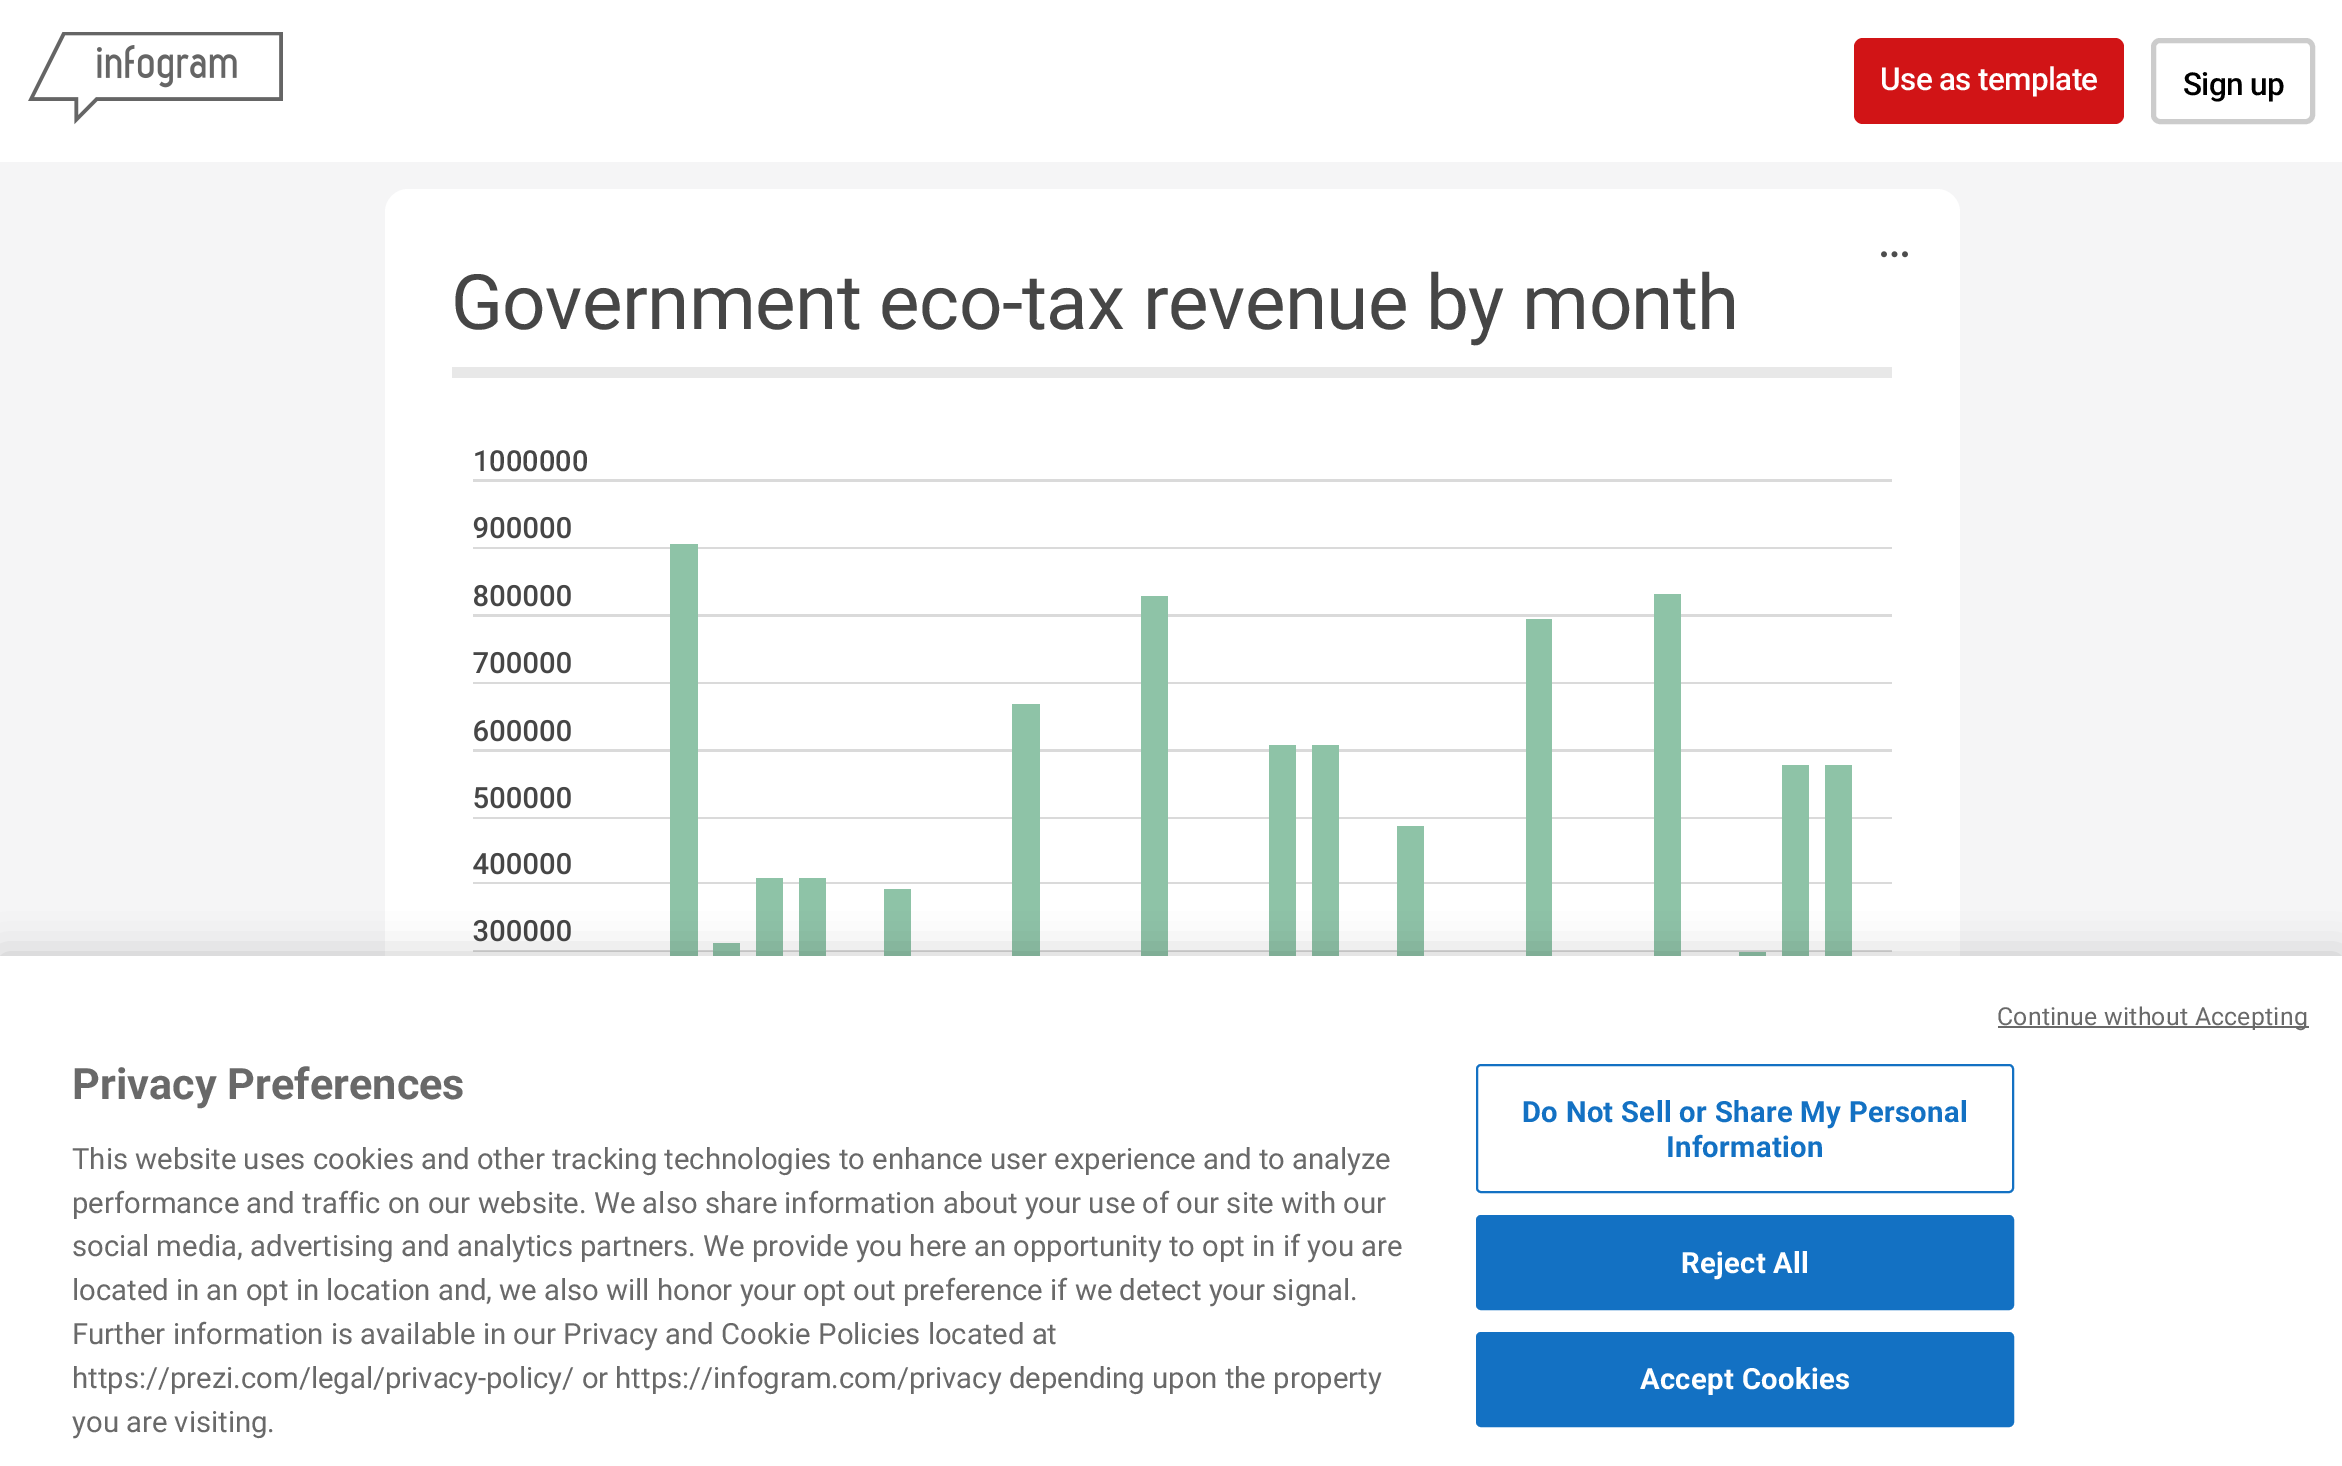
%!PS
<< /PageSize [2342 1466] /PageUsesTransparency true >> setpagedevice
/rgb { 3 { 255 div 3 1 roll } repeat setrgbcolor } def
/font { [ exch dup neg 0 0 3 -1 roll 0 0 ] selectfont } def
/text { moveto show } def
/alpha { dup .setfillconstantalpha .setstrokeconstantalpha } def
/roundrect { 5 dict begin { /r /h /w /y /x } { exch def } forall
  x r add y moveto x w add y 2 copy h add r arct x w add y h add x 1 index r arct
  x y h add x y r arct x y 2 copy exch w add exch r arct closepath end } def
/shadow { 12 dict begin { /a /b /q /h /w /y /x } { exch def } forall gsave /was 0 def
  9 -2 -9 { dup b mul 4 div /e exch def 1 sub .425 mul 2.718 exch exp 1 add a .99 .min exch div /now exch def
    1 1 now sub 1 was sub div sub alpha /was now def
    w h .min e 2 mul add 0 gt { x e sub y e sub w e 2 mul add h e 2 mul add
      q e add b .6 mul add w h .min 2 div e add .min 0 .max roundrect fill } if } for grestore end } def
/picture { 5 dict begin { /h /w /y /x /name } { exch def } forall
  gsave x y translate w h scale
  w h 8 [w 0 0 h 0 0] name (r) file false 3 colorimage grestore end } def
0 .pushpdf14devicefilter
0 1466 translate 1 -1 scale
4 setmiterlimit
245 245 246 rgb
0 0 2342 1466 rectfill
255 255 255 rgb
0 0 2342 162 rectfill
(img_01.rgb) 28 32 255 93 picture
209 20 22 rgb
1854 38 270 86 9 roundrect fill
204 204 204 rgb
5 setlinewidth
2153.5 40.5 159 81 6.5 roundrect stroke
255 255 255 rgb
408 189 moveto 1529 0 rlineto 12.5 0 23 10.5 23 23 rcurveto 0 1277 rlineto -1575 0 rlineto 0 -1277 rlineto 0 -12.5 10.5 -23 23 -23 rcurveto closepath fill
(img_02.rgb) 1881 251 27 7 picture
232 232 232 rgb
452 367 1440 11 rectfill
/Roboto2-Medium 31.5 font
255 255 255 rgb
1880 90 moveto -0.65 0 (Use as template) ashow
0 0 0 rgb
2183 95 moveto -0.65 0 (Sign up) ashow
/Roboto-Regular 76.5 font
70 70 70 rgb
451 329 moveto -0.65 0 (Government eco-tax revenue by month) ashow
/Roboto-Medium 29 font
(1000000) 473 471 text
(900000) 473 538 text
(800000) 473 606 text
(700000) 473 673 text
(600000) 473 741 text
(500000) 473 808 text
(400000) 473 874 text
(300000) 473 941 text
(img_03.rgb) 473 479 1419 477 picture
0 0 0 rgb
0 956 2342 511 0 20 0.2 shadow
255 255 255 rgb
0 956 2342 510 rectfill
105 105 105 rgb
1998 1026 311 2 rectfill
/Roboto-Regular 24.8 font
1997 1025 moveto 0.25 0 (Continue without Accepting) ashow
/Roboto-Bold 43.25 font
(Privacy Preferences) 72 1099 text
/Roboto-Regular 29.25 font
(This website uses cookies and other tracking technologies to enhance user experience and to analyze) 72 1169 text
(performance and traffic on our website. We also share information about your use of our site with our) 72 1213 text
(social media, advertising and analytics partners. We provide you here an opportunity to opt in if you are) 72 1256 text
(located in an opt in location and, we also will honor your opt out preference if we detect your signal.) 72 1300 text
(Further information is available in our Privacy and Cookie Policies located at) 72 1344 text
(https://prezi.com/legal/privacy-policy/ or https://infogram.com/privacy depending upon the property) 72 1388 text
(you are visiting.) 72 1432 text
19 113 195 rgb
2 setlinewidth
1477 1065 536 127 4 roundrect stroke
/Roboto-Bold 29.25 font
1522 1122 moveto 0.3 0 (Do Not Sell or Share My Personal) ashow
1666 1157 moveto 0.3 0 (Information) ashow
1477 1216 536 93 4 roundrect gsave fill grestore
stroke
255 255 255 rgb
1681 1273 moveto 0.3 0 (Reject All) ashow
19 113 195 rgb
1477 1333 536 93 4 roundrect gsave fill grestore
stroke
255 255 255 rgb
1640 1389 moveto 0.3 0 (Accept Cookies) ashow
.poppdf14devicefilter showpage
